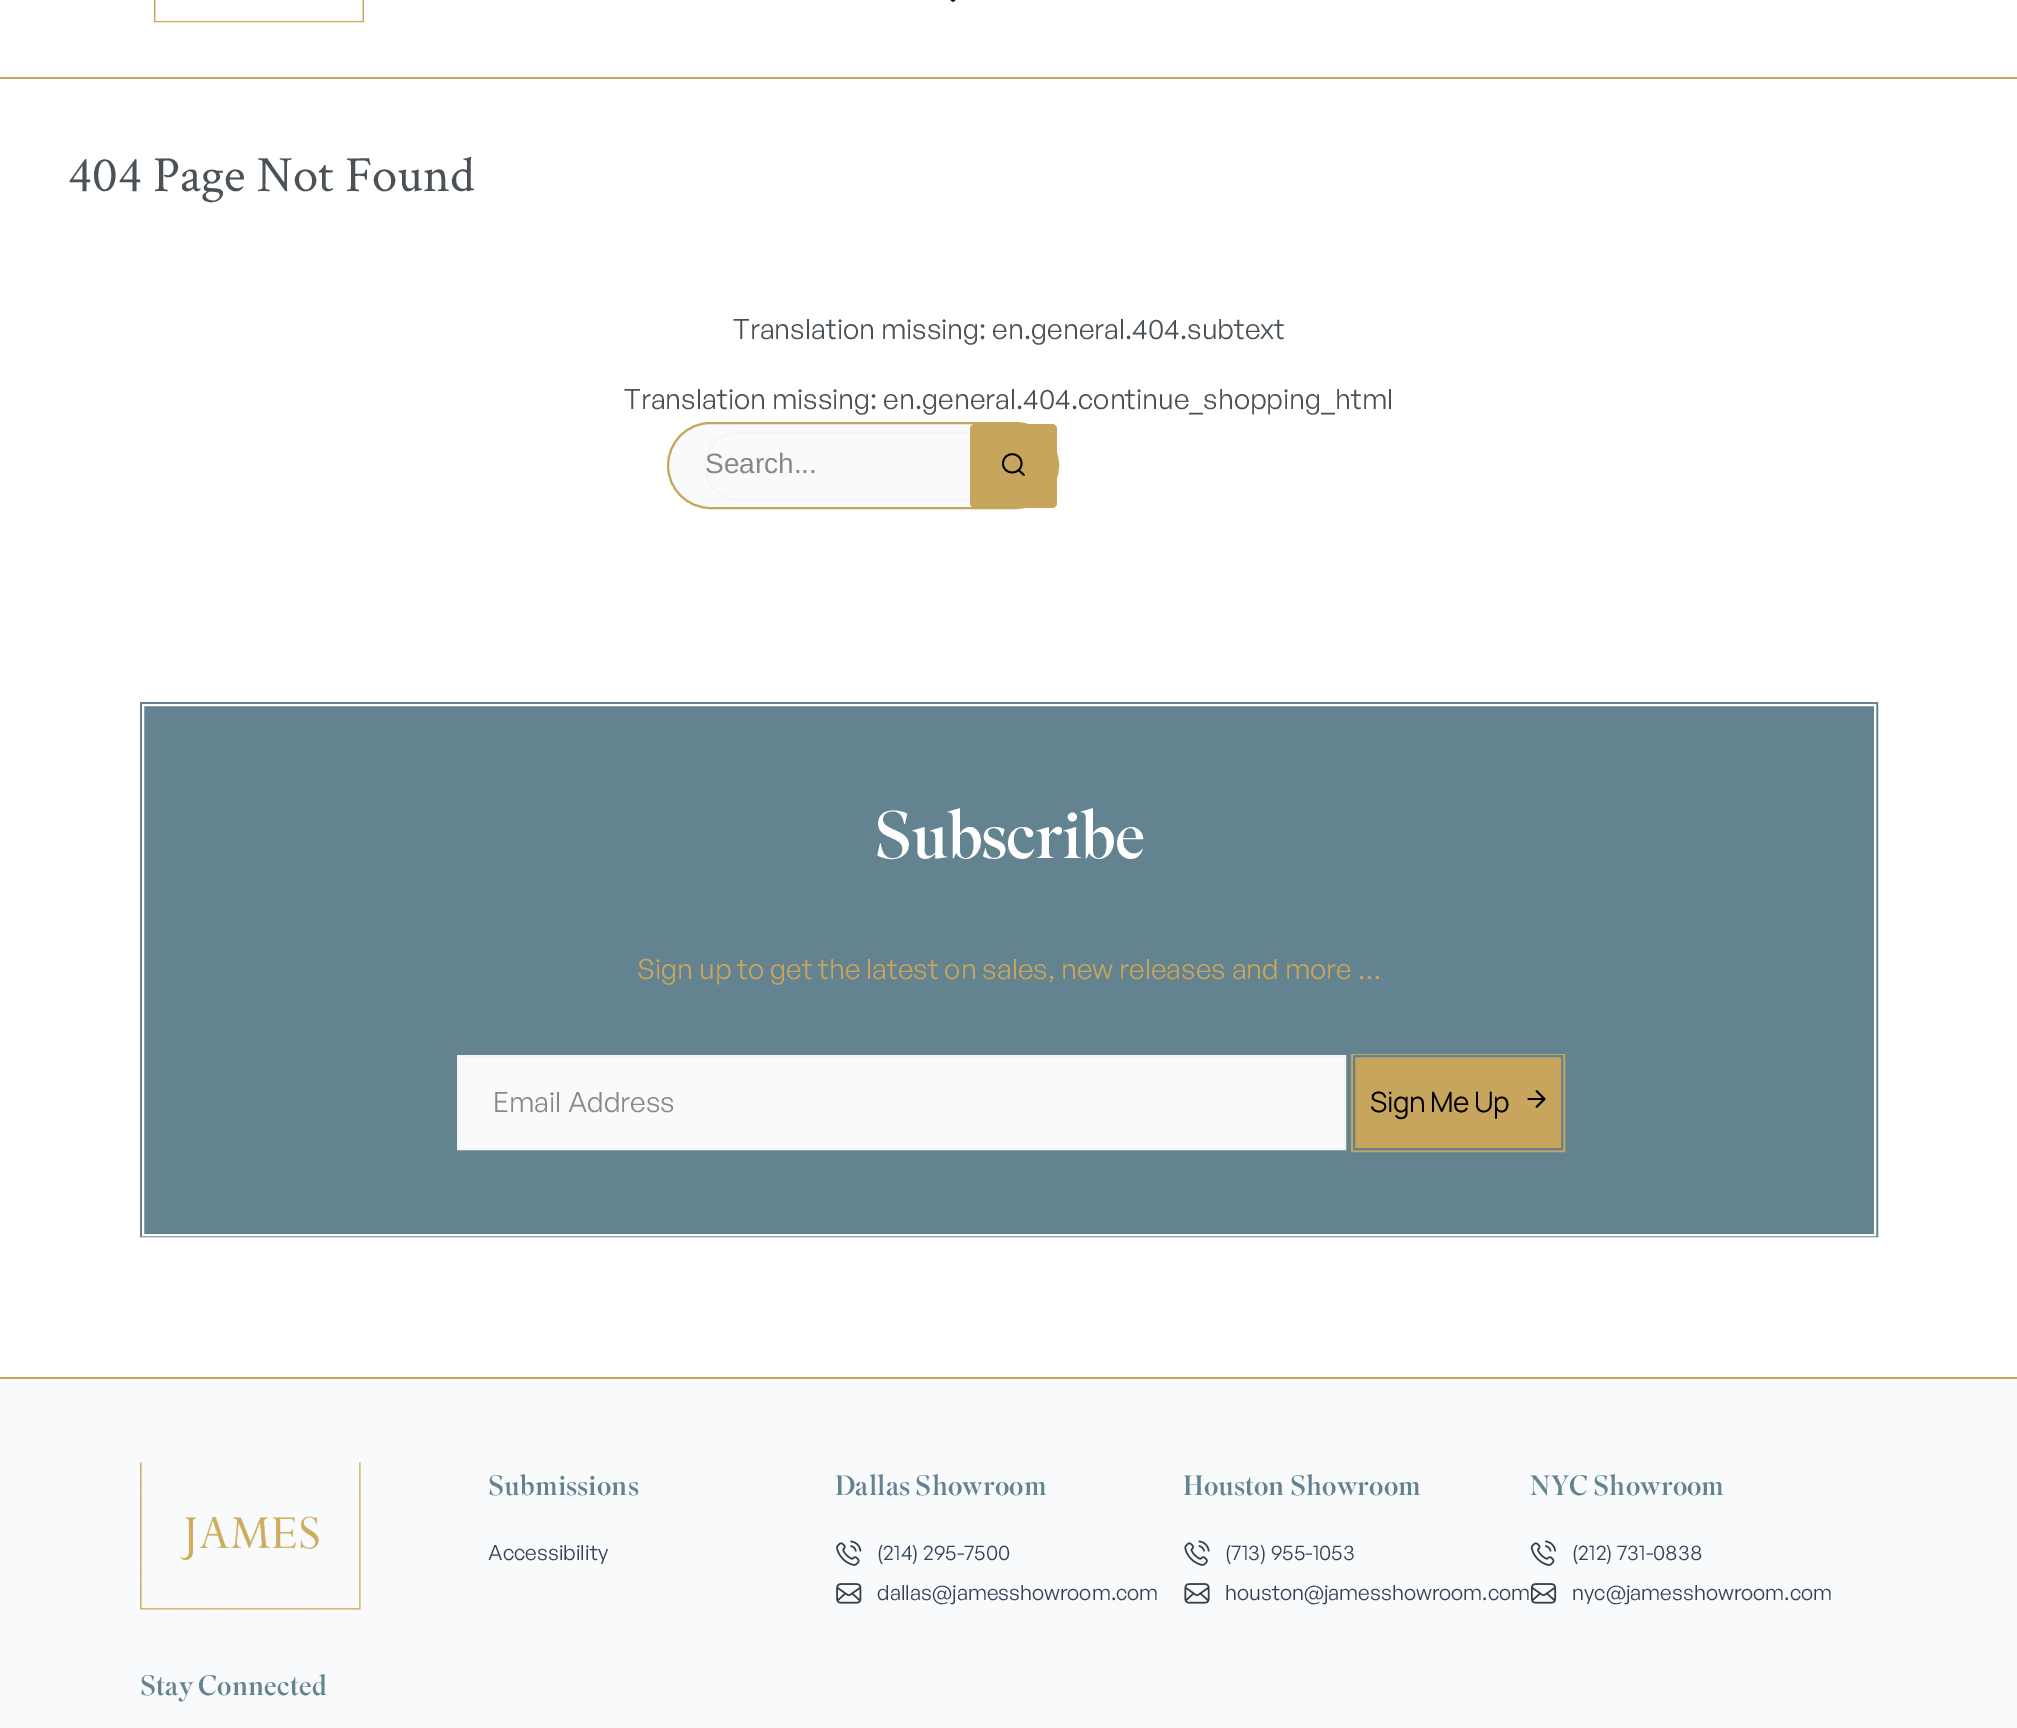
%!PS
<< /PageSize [2017 1728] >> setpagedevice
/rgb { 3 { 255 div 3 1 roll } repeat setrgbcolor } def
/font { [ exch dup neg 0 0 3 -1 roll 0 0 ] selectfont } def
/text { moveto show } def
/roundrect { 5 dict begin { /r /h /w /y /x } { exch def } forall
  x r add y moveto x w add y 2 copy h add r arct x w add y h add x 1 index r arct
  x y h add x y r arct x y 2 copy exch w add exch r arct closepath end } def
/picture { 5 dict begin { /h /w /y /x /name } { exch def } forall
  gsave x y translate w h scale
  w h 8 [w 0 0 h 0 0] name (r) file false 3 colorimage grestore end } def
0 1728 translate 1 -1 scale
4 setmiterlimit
255 255 255 rgb
0 0 2017 1728 rectfill
198 165 93 rgb
0 77 2017 2 rectfill
(img_01.rgb) 154 0 210 23 picture
0 0 0 rgb
1.8 setlinewidth
1 setlinecap
1 setlinejoin
946 -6 moveto 7 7 rlineto 7 -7 rlineto stroke
248 250 252 rgb
668 423 390 85 42.5 roundrect gsave fill grestore
198 165 93 rgb
2 setlinewidth
0 setlinecap
0 setlinejoin
stroke
245 245 245 rgb
705 432 344 68 34 roundrect stroke
199 165 93 rgb
970 424 87 84 5 roundrect fill
0 0 0 rgb
1.8 setlinewidth
1 setlinecap
1 setlinejoin
1024 475 moveto -5.5 -5 rlineto 1021.5 463.5 moveto 0 12 -18.5 12 -18.5 0 rcurveto 0 -12.5 18.5 -12.5 18.5 0 rcurveto closepath stroke
100 131 144 rgb
2 setlinewidth
0 setlinecap
0 setlinejoin
141 703 1736 533 rectstroke
143 705 moveto 1732 0 rlineto 0 530 rlineto -1732 0 rlineto closepath gsave fill grestore
255 255 255 rgb
stroke
248 250 252 rgb
458 1056 moveto 887 0 rlineto 0 93 rlineto -887 0 rlineto closepath gsave fill grestore
245 245 245 rgb
stroke
198 165 93 rgb
1352 1055 212 96 rectstroke
199 165 93 rgb
1354 1056 moveto 208 0 rlineto 0 93 rlineto -208 0 rlineto closepath gsave fill grestore
100 131 144 rgb
stroke
0 0 0 rgb
1.8 setlinewidth
1 setlinecap
1 setlinejoin
1528.5 1099 moveto 16 0 rlineto 1544.5 1099 moveto -8 -8 rlineto 1544.5 1099 moveto -8 8 rlineto stroke
248 250 252 rgb
0 1379 2017 349 rectfill
198 165 93 rgb
0 1377 2017 2 rectfill
(img_02.rgb) 140 1462 221 148 picture
(img_03.rgb) 836 1540 26 26 picture
(img_04.rgb) 836 1583 26 21 picture
(img_05.rgb) 1184 1540 26 26 picture
(img_06.rgb) 1184 1583 26 21 picture
(img_07.rgb) 1530 1540 27 26 picture
(img_08.rgb) 1530 1583 27 21 picture
/CrimsonText-Regular 50.75 font
75 82 87 rgb
(404 Page Not Found) 68 191 text
/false-Regular 28 font
(Translation missing: en.general.404.subtext) 733 339 text
(Translation missing: en.general.404.continue_shopping_html) 624 409 text
/LiberationSans-Regular 28 font
136 136 136 rgb
(Search...) 705 473 text
/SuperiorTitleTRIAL-Regular 66.5 font
255 255 255 rgb
874 858 moveto -1.25 0 (Subscribe) ashow
/false-Regular 28 font
199 165 93 rgb
(Sign up to get the latest on sales, new releases and more …) 637 979 text
136 136 136 rgb
(Email Address) 493 1112 text
/Manrope-Regular 28 font
0 0 0 rgb
1370 1112 moveto -0.5 0 (Sign Me Up) ashow
/SuperiorTitleTRIAL-Regular 28 font
100 131 144 rgb
(Submissions) 488 1495 text
/false-Regular 21 font
51 65 85 rgb
(Accessibility) 488 1560 text
/SuperiorTitleTRIAL-Regular 28 font
100 131 144 rgb
(Dallas Showroom) 835 1495 text
/false-Regular 21 font
51 65 85 rgb
(\(214\) 295-7500) 877 1560 text
(dallas@jamesshowroom.com) 877 1600 text
/SuperiorTitleTRIAL-Regular 28 font
100 131 144 rgb
(Houston Showroom) 1183 1495 text
/false-Regular 21 font
51 65 85 rgb
(\(713\) 955-1053) 1225 1560 text
(houston@jamesshowroom.com) 1225 1600 text
/SuperiorTitleTRIAL-Regular 28 font
100 131 144 rgb
(NYC Showroom) 1530 1495 text
/false-Regular 21 font
51 65 85 rgb
(\(212\) 731-0838) 1572 1560 text
(nyc@jamesshowroom.com) 1572 1600 text
/SuperiorTitleTRIAL-Regular 28 font
100 131 144 rgb
(Stay Connected) 140 1695 text
showpage
